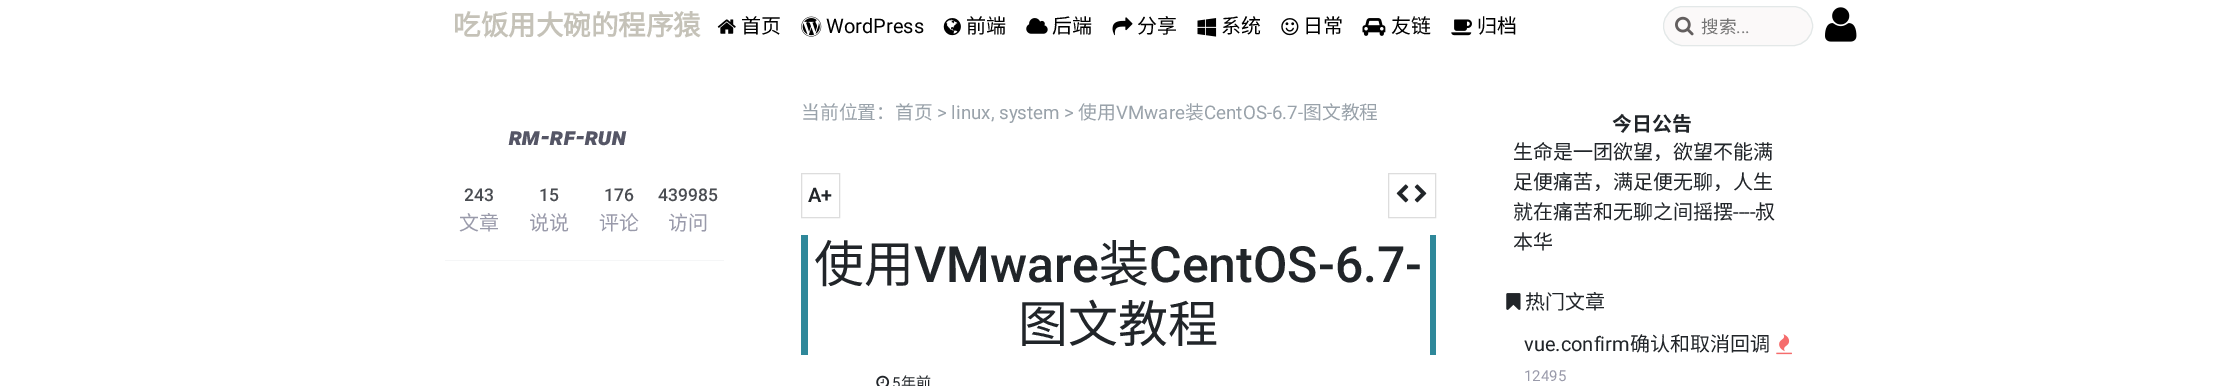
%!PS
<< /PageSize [2236 386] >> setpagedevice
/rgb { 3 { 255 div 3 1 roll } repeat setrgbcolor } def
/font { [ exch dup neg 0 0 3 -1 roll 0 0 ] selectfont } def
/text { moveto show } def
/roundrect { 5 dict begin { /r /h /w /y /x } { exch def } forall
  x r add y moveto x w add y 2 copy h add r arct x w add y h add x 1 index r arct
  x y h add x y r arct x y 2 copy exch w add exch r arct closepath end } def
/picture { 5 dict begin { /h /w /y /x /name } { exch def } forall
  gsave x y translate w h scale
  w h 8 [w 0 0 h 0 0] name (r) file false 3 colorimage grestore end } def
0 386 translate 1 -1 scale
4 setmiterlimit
255 255 255 rgb
0 0 2236 386 rectfill
(img_01.rgb) 717 19 19 15 picture
(img_02.rgb) 801 16 21 21 picture
(img_03.rgb) 943 18 18 18 picture
(img_04.rgb) 1026 18 22 16 picture
(img_05.rgb) 1112 17 21 19 picture
(img_06.rgb) 1197 18 20 19 picture
(img_07.rgb) 1281 18 18 18 picture
(img_08.rgb) 1362 18 24 18 picture
(img_09.rgb) 1451 19 21 17 picture
251 249 249 rgb
1663.5 6.5 149 39 19.5 roundrect gsave fill grestore
227 232 232 rgb
stroke
(img_10.rgb) 1675 16 19 20 picture
(img_11.rgb) 1825 7 32 35 picture
245 246 247 rgb
445 260 279 1 rectfill
221 221 221 rgb
801.5 173.5 38 44 rectstroke
1388.5 173.5 47 44 rectstroke
(img_12.rgb) 1396 184 13 19 picture
(img_13.rgb) 1414 184 13 19 picture
47 136 154 rgb
1430 235 6 120 rectfill
801 235 7 120 rectfill
(img_14.rgb) 876 375 14 11 picture
(img_15.rgb) 1506 293 15 17 picture
(img_16.rgb) 1776 334 16 21 picture
/NotoSansCJKSC-Bold 27.5 font
197 194 184 rgb
(吃饭用大碗的程序猿) 453 35 text
/NotoSansCJKSC-Regular 20 font
0 0 0 rgb
(首页) 741 33 text
/Roboto-Regular 20 font
(WordPress) 826 33 text
/NotoSansCJKSC-Regular 20 font
(前端) 966 33 text
(后端) 1052 33 text
(分享) 1137 33 text
(系统) 1221 33 text
(日常) 1303 33 text
(友链) 1391 33 text
(归档) 1477 33 text
/NotoSansCJKSC-Regular 17.5 font
117 117 117 rgb
(搜索) 1701 33 text
/Roboto-Regular 17.5 font
(...) 1736 33 text
/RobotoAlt-BlackItalic 24 font
85 86 102 rgb
(rm-rf-run) 509 145 text
/Roboto-Medium 17.5 font
74 77 82 rgb
(243) 464 201 text
/NotoSansCJKSC-Regular 20 font
153 154 170 rgb
(文章) 459 230 text
/Roboto-Medium 17.5 font
74 77 82 rgb
(15) 539 201 text
/NotoSansCJKSC-Regular 20 font
153 154 170 rgb
(说说) 529 230 text
/Roboto-Medium 17.5 font
74 77 82 rgb
(176) 604 201 text
/NotoSansCJKSC-Regular 20 font
153 154 170 rgb
(评论) 599 230 text
/Roboto-Medium 17.5 font
74 77 82 rgb
(439985) 658 201 text
/NotoSansCJKSC-Regular 20 font
153 154 170 rgb
(访问) 668 230 text
/NotoSansCJKSC-Regular 18.75 font
153 162 170 rgb
(当前位置：首页) 801 119 text
/Roboto-Regular 18.75 font
(> linux, system >) 937 119 text
/NotoSansCJKSC-Regular 18.75 font
(使用) 1078 119 text
/Roboto-Regular 18.75 font
(VMware) 1116 119 text
/NotoSansCJKSC-Regular 18.75 font
(装) 1185 119 text
/Roboto-Regular 18.75 font
(CentOS-6.7-) 1204 119 text
/NotoSansCJKSC-Regular 18.75 font
(图文教程) 1303 119 text
/Roboto-SemiBold 20 font
33 37 41 rgb
(A+) 808 202 text
/NotoSansCJKSC-Regular 50 font
(使用) 814 282 text
/Roboto-Medium 50 font
(VMware) 914 282 text
/NotoSansCJKSC-Regular 50 font
(装) 1099 282 text
/Roboto-Medium 50 font
(CentOS-6.7-) 1149 282 text
/NotoSansCJKSC-Regular 50 font
(图文教程) 1018 342 text
/Roboto-Regular 15 font
(5) 892 388 text
/NotoSansCJKSC-Regular 15 font
(年前) 901 388 text
/NotoSansSC-Bold 20 font
(今日公告) 1612 131 text
/NotoSansCJKSC-Regular 20 font
(生命是一团欲望，欲望不能满) 1513 159 text
(足便痛苦，满足便无聊，人生) 1513 189 text
(就在痛苦和无聊之间摇摆) 1513 219 text
/Roboto-Regular 20 font
(----) 1733 219 text
/NotoSansCJKSC-Regular 20 font
(叔) 1755 219 text
(本华) 1513 249 text
(热门文章) 1525 309 text
/Roboto-Regular 20 font
(vue.confirm) 1524 351 text
/NotoSansCJKSC-Regular 20 font
(确认和取消回调) 1630 351 text
/Roboto-Regular 15 font
153 154 170 rgb
(12495) 1524 381 text
showpage
